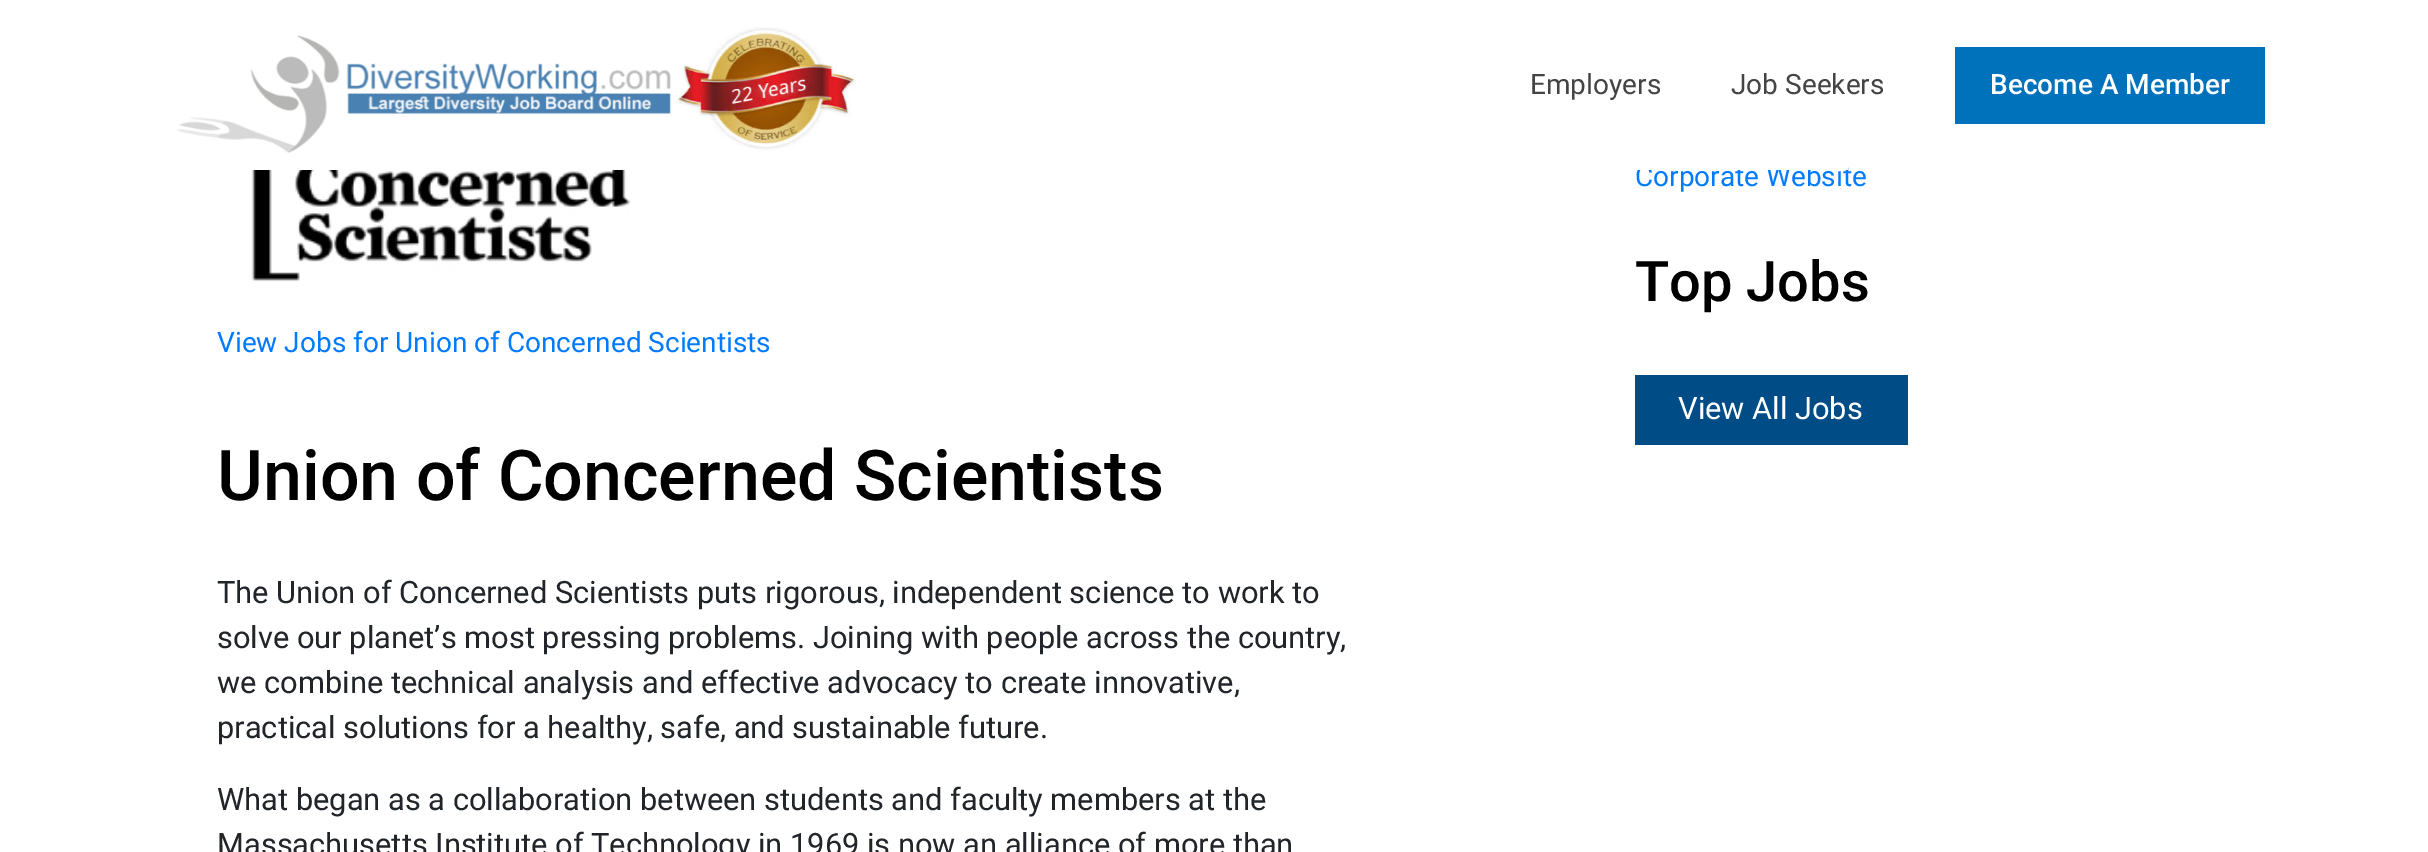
%!PS
<< /PageSize [2428 852] >> setpagedevice
/rgb { 3 { 255 div 3 1 roll } repeat setrgbcolor } def
/font { [ exch dup neg 0 0 3 -1 roll 0 0 ] selectfont } def
/text { moveto show } def
/picture { 5 dict begin { /h /w /y /x /name } { exch def } forall
  gsave x y translate w h scale
  w h 8 [w 0 0 h 0 0] name (r) file false 3 colorimage grestore end } def
0 852 translate 1 -1 scale
4 setmiterlimit
255 255 255 rgb
0 0 2428 852 rectfill
(img_01.rgb) 177 27 679 126 picture
0 114 188 rgb
1955 47 310 77 rectfill
0 76 134 rgb
1635 375 273 70 rectfill
(img_02.rgb) 251 170 380 112 picture
/Roboto-Regular 28 font
68 68 68 rgb
(Employers) 1530 94 text
(Job Seekers) 1731 94 text
/Roboto-Medium 28 font
255 255 255 rgb
(Become A Member) 1990 94 text
/Roboto-Regular 28 font
0 123 255 rgb
(Corporate Website) 1635 186 text
255 255 255 rgb
1637 165 211 5 rectfill
/Roboto-Medium 56 font
0 0 0 rgb
(Top Jobs) 1635 301 text
/Roboto-Regular 30.8 font
255 255 255 rgb
(View All Jobs) 1678 419 text
/Roboto-Regular 28 font
0 123 255 rgb
(View Jobs for Union of Concerned Scientists) 217 352 text
/Roboto-Medium 70 font
0 0 0 rgb
(Union of Concerned Scientists) 217 500 text
/Roboto-Regular 30.8 font
33 37 41 rgb
(The Union of Concerned Scientists puts rigorous, independent science to work to) 217 603 text
(solve our planet’s most pressing problems. Joining with people across the country,) 217 648 text
(we combine technical analysis and effective advocacy to create innovative,) 217 693 text
(practical solutions for a healthy, safe, and sustainable future.) 217 738 text
(What began as a collaboration between students and faculty members at the) 217 810 text
(Massachusetts Institute of Technology in 1969 is now an alliance of more than) 217 855 text
showpage
